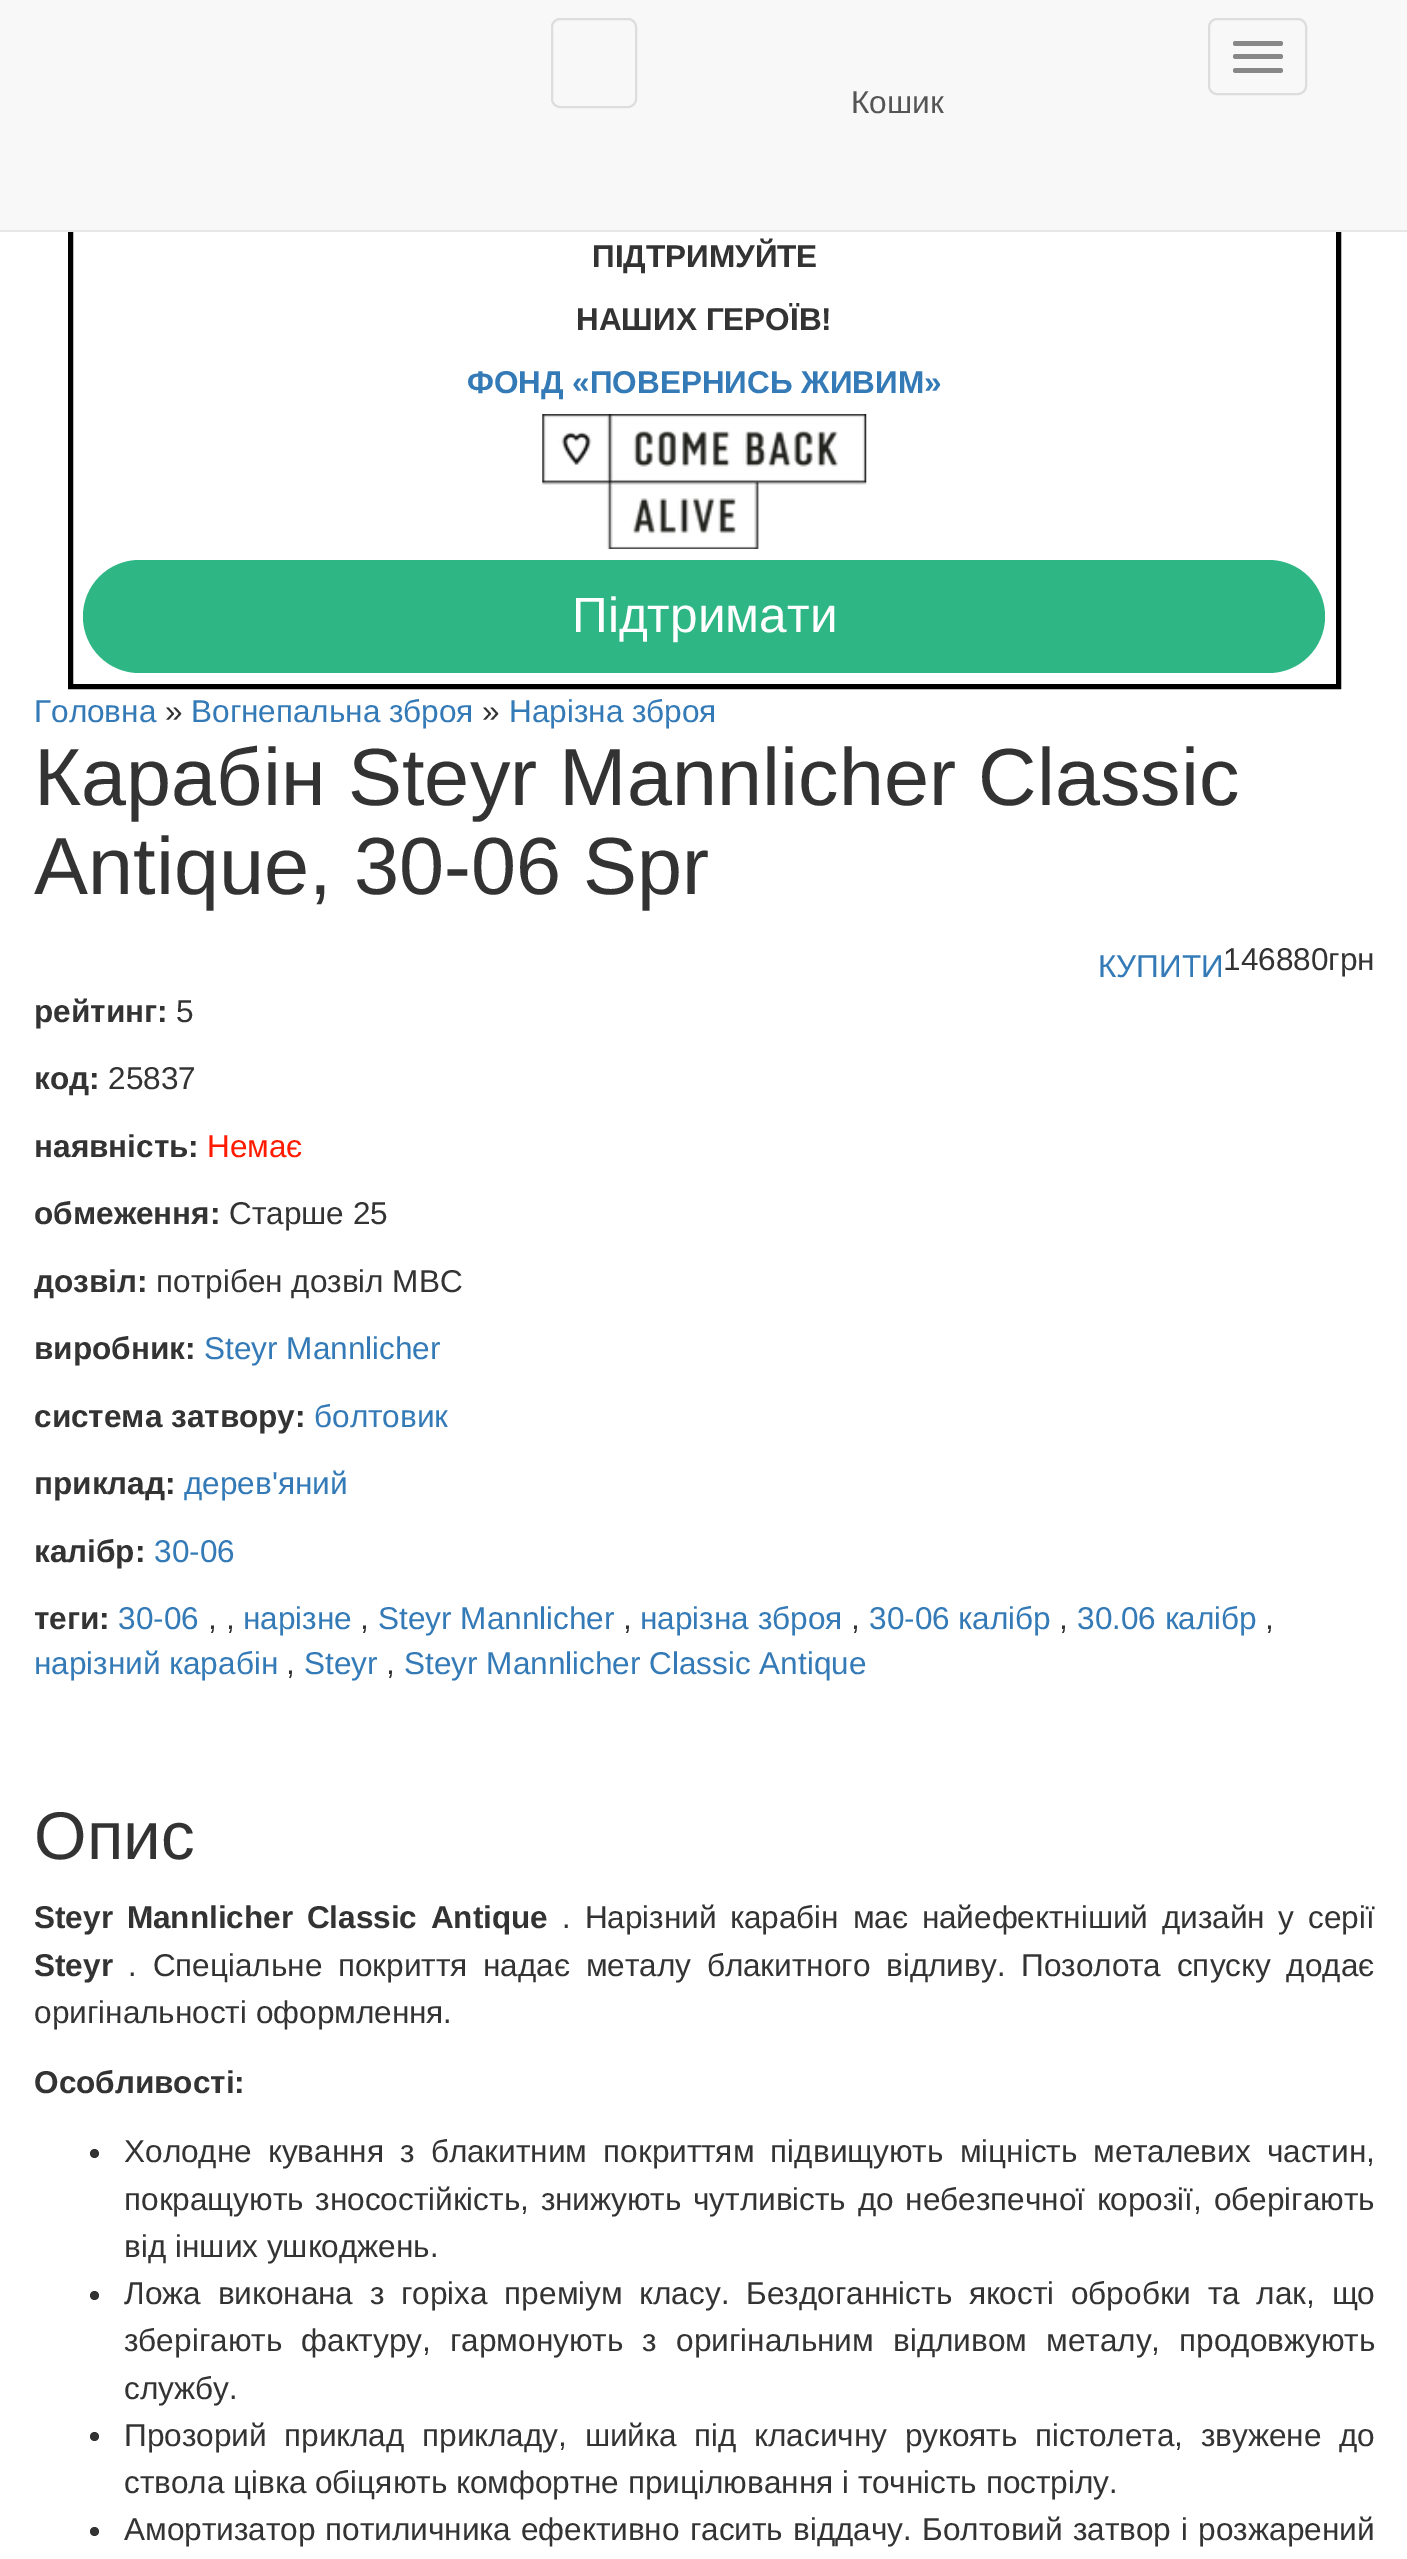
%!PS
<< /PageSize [1407 2559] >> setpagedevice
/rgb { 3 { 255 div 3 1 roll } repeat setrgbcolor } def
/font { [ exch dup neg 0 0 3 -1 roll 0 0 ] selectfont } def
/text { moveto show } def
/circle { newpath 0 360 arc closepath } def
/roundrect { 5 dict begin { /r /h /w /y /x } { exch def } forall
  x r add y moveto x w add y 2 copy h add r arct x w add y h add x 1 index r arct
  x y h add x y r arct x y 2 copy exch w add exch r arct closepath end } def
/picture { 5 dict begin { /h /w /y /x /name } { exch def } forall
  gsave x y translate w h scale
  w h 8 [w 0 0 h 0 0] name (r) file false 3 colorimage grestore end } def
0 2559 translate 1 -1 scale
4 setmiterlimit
255 255 255 rgb
0 0 1407 2559 rectfill
0 0 0 rgb
5 setlinewidth
70.5 97.5 1268 589 rectstroke
248 248 248 rgb
0 0 1407 230 rectfill
231 231 231 rgb
0 230 1407 2 rectfill
221 221 221 rgb
2 setlinewidth
552 19 84 88 8 roundrect stroke
1209 19 97 75 8 roundrect stroke
136 136 136 rgb
1233 41 50 5 2.5 roundrect fill
1233 54 50 5 2.5 roundrect fill
1233 68 50 5 2.5 roundrect fill
(img_01.rgb) 542 414 325 135 picture
47 182 133 rgb
83 560 1242 113 56.5 roundrect fill
51 51 51 rgb
94.5 2153.5 4.5 circle fill
94.5 2295.5 4.5 circle fill
94.5 2436.5 4.5 circle fill
94.5 2531.5 4.5 circle fill
/LiberationSans-Regular 31.5 font
85 85 85 rgb
(Кошик) 851 113 text
/LiberationSans-Bold 31.5 font
51 51 51 rgb
(ПІДТРИМУЙТЕ) 592 267 text
(НАШИХ ГЕРОЇВ!) 576 330 text
51 122 183 rgb
(ФОНД «ПОВЕРНИСЬ ЖИВИМ») 467 393 text
/LiberationSans-Regular 49.5 font
255 255 255 rgb
(Підтримати) 572 632 text
/LiberationSans-Regular 31.5 font
51 122 183 rgb
(Головна) 34 722 text
51 51 51 rgb
(») 165 722 text
51 122 183 rgb
(Вогнепальна зброя) 191 722 text
51 51 51 rgb
(») 482 722 text
51 122 183 rgb
(Нарізна зброя) 509 722 text
/LiberationSans-Regular 81 font
51 51 51 rgb
(Карабін Steyr Mannlicher Classic) 34 805 text
(Antique, 30-06 Spr) 34 894 text
/LiberationSans-Regular 31.5 font
51 122 183 rgb
(КУПИТИ) 1098 977 text
51 51 51 rgb
(146880грн) 1223 970 text
/LiberationSans-Bold 31.5 font
(рейтинг:) 34 1022 text
/LiberationSans-Regular 31.5 font
(5) 176 1022 text
/LiberationSans-Bold 31.5 font
(код:) 34 1089 text
/LiberationSans-Regular 31.5 font
(25837) 108 1089 text
/LiberationSans-Bold 31.5 font
(наявність:) 34 1157 text
/LiberationSans-Regular 31.5 font
255 26 0 rgb
(Немає) 207 1157 text
/LiberationSans-Bold 31.5 font
51 51 51 rgb
(обмеження:) 34 1224 text
/LiberationSans-Regular 31.5 font
(Старше 25) 229 1224 text
/LiberationSans-Bold 31.5 font
(дозвіл:) 34 1292 text
/LiberationSans-Regular 31.5 font
(потрібен дозвіл МВС) 156 1292 text
/LiberationSans-Bold 31.5 font
(виробник:) 34 1359 text
/LiberationSans-Regular 31.5 font
51 122 183 rgb
(Steyr Mannlicher) 204 1359 text
/LiberationSans-Bold 31.5 font
51 51 51 rgb
(система затвору:) 34 1427 text
/LiberationSans-Regular 31.5 font
51 122 183 rgb
(болтовик) 314 1427 text
/LiberationSans-Bold 31.5 font
51 51 51 rgb
(приклад:) 34 1494 text
/LiberationSans-Regular 31.5 font
51 122 183 rgb
(дерев'яний) 184 1494 text
/LiberationSans-Bold 31.5 font
51 51 51 rgb
(калібр:) 34 1562 text
/LiberationSans-Regular 31.5 font
51 122 183 rgb
(30-06) 154 1562 text
/LiberationSans-Bold 31.5 font
51 51 51 rgb
(теги:) 34 1629 text
/LiberationSans-Regular 31.5 font
51 122 183 rgb
(30-06) 118 1629 text
51 51 51 rgb
(, ,) 208 1629 text
51 122 183 rgb
(нарізне) 243 1629 text
51 51 51 rgb
(,) 360 1629 text
51 122 183 rgb
(Steyr Mannlicher) 378 1629 text
51 51 51 rgb
(,) 623 1629 text
51 122 183 rgb
(нарізна зброя) 640 1629 text
51 51 51 rgb
(,) 851 1629 text
51 122 183 rgb
(30-06 калібр) 869 1629 text
51 51 51 rgb
(,) 1059 1629 text
51 122 183 rgb
(30.06 калібр) 1077 1629 text
51 51 51 rgb
(,) 1265 1629 text
51 122 183 rgb
(нарізний карабін) 34 1674 text
51 51 51 rgb
(,) 286 1674 text
51 122 183 rgb
(Steyr) 304 1674 text
51 51 51 rgb
(,) 386 1674 text
51 122 183 rgb
(Steyr Mannlicher Classic Antique) 404 1674 text
/LiberationSans-Regular 67.5 font
51 51 51 rgb
(Опис) 34 1859 text
/LiberationSans-Bold 31.5 font
34 1928 moveto 5 0 32 (Steyr Mannlicher Classic Antique) widthshow
/LiberationSans-Regular 31.5 font
562 1928 moveto 5 0 32 (. Нарізний карабін має найефектніший дизайн у серії) widthshow
/LiberationSans-Bold 31.5 font
(Steyr) 34 1976 text
/LiberationSans-Regular 31.5 font
128 1976 moveto 7 0 32 (. Спеціальне покриття надає металу блакитного відливу. Позолота спуску додає) widthshow
(оригінальності оформлення.) 34 2023 text
/LiberationSans-Bold 31.5 font
(Особливості:) 34 2093 text
/LiberationSans-Regular 31.5 font
124 2162 moveto 7.5 0 32 (Холодне кування з блакитним покриттям підвищують міцність металевих частин,) widthshow
124 2210 moveto 3 0 32 (покращують зносостійкість, знижують чутливість до небезпечної корозії, оберігають) widthshow
(від інших ушкоджень.) 124 2257 text
124 2304 moveto 8 0 32 (Ложа виконана з горіха преміум класу. Бездоганність якості обробки та лак, що) widthshow
124 2351 moveto 10.5 0 32 (зберігають фактуру, гармонують з оригінальним відливом металу, продовжують) widthshow
(службу.) 124 2399 text
124 2446 moveto 9 0 32 (Прозорий приклад прикладу, шийка під класичну рукоять пістолета, звужене до) widthshow
(ствола цівка обіцяють комфортне прицілювання і точність пострілу.) 124 2493 text
124 2540 moveto 1.5 0 32 (Амортизатор потиличника ефективно гасить віддачу. Болтовий затвор і розжарений) widthshow
showpage
